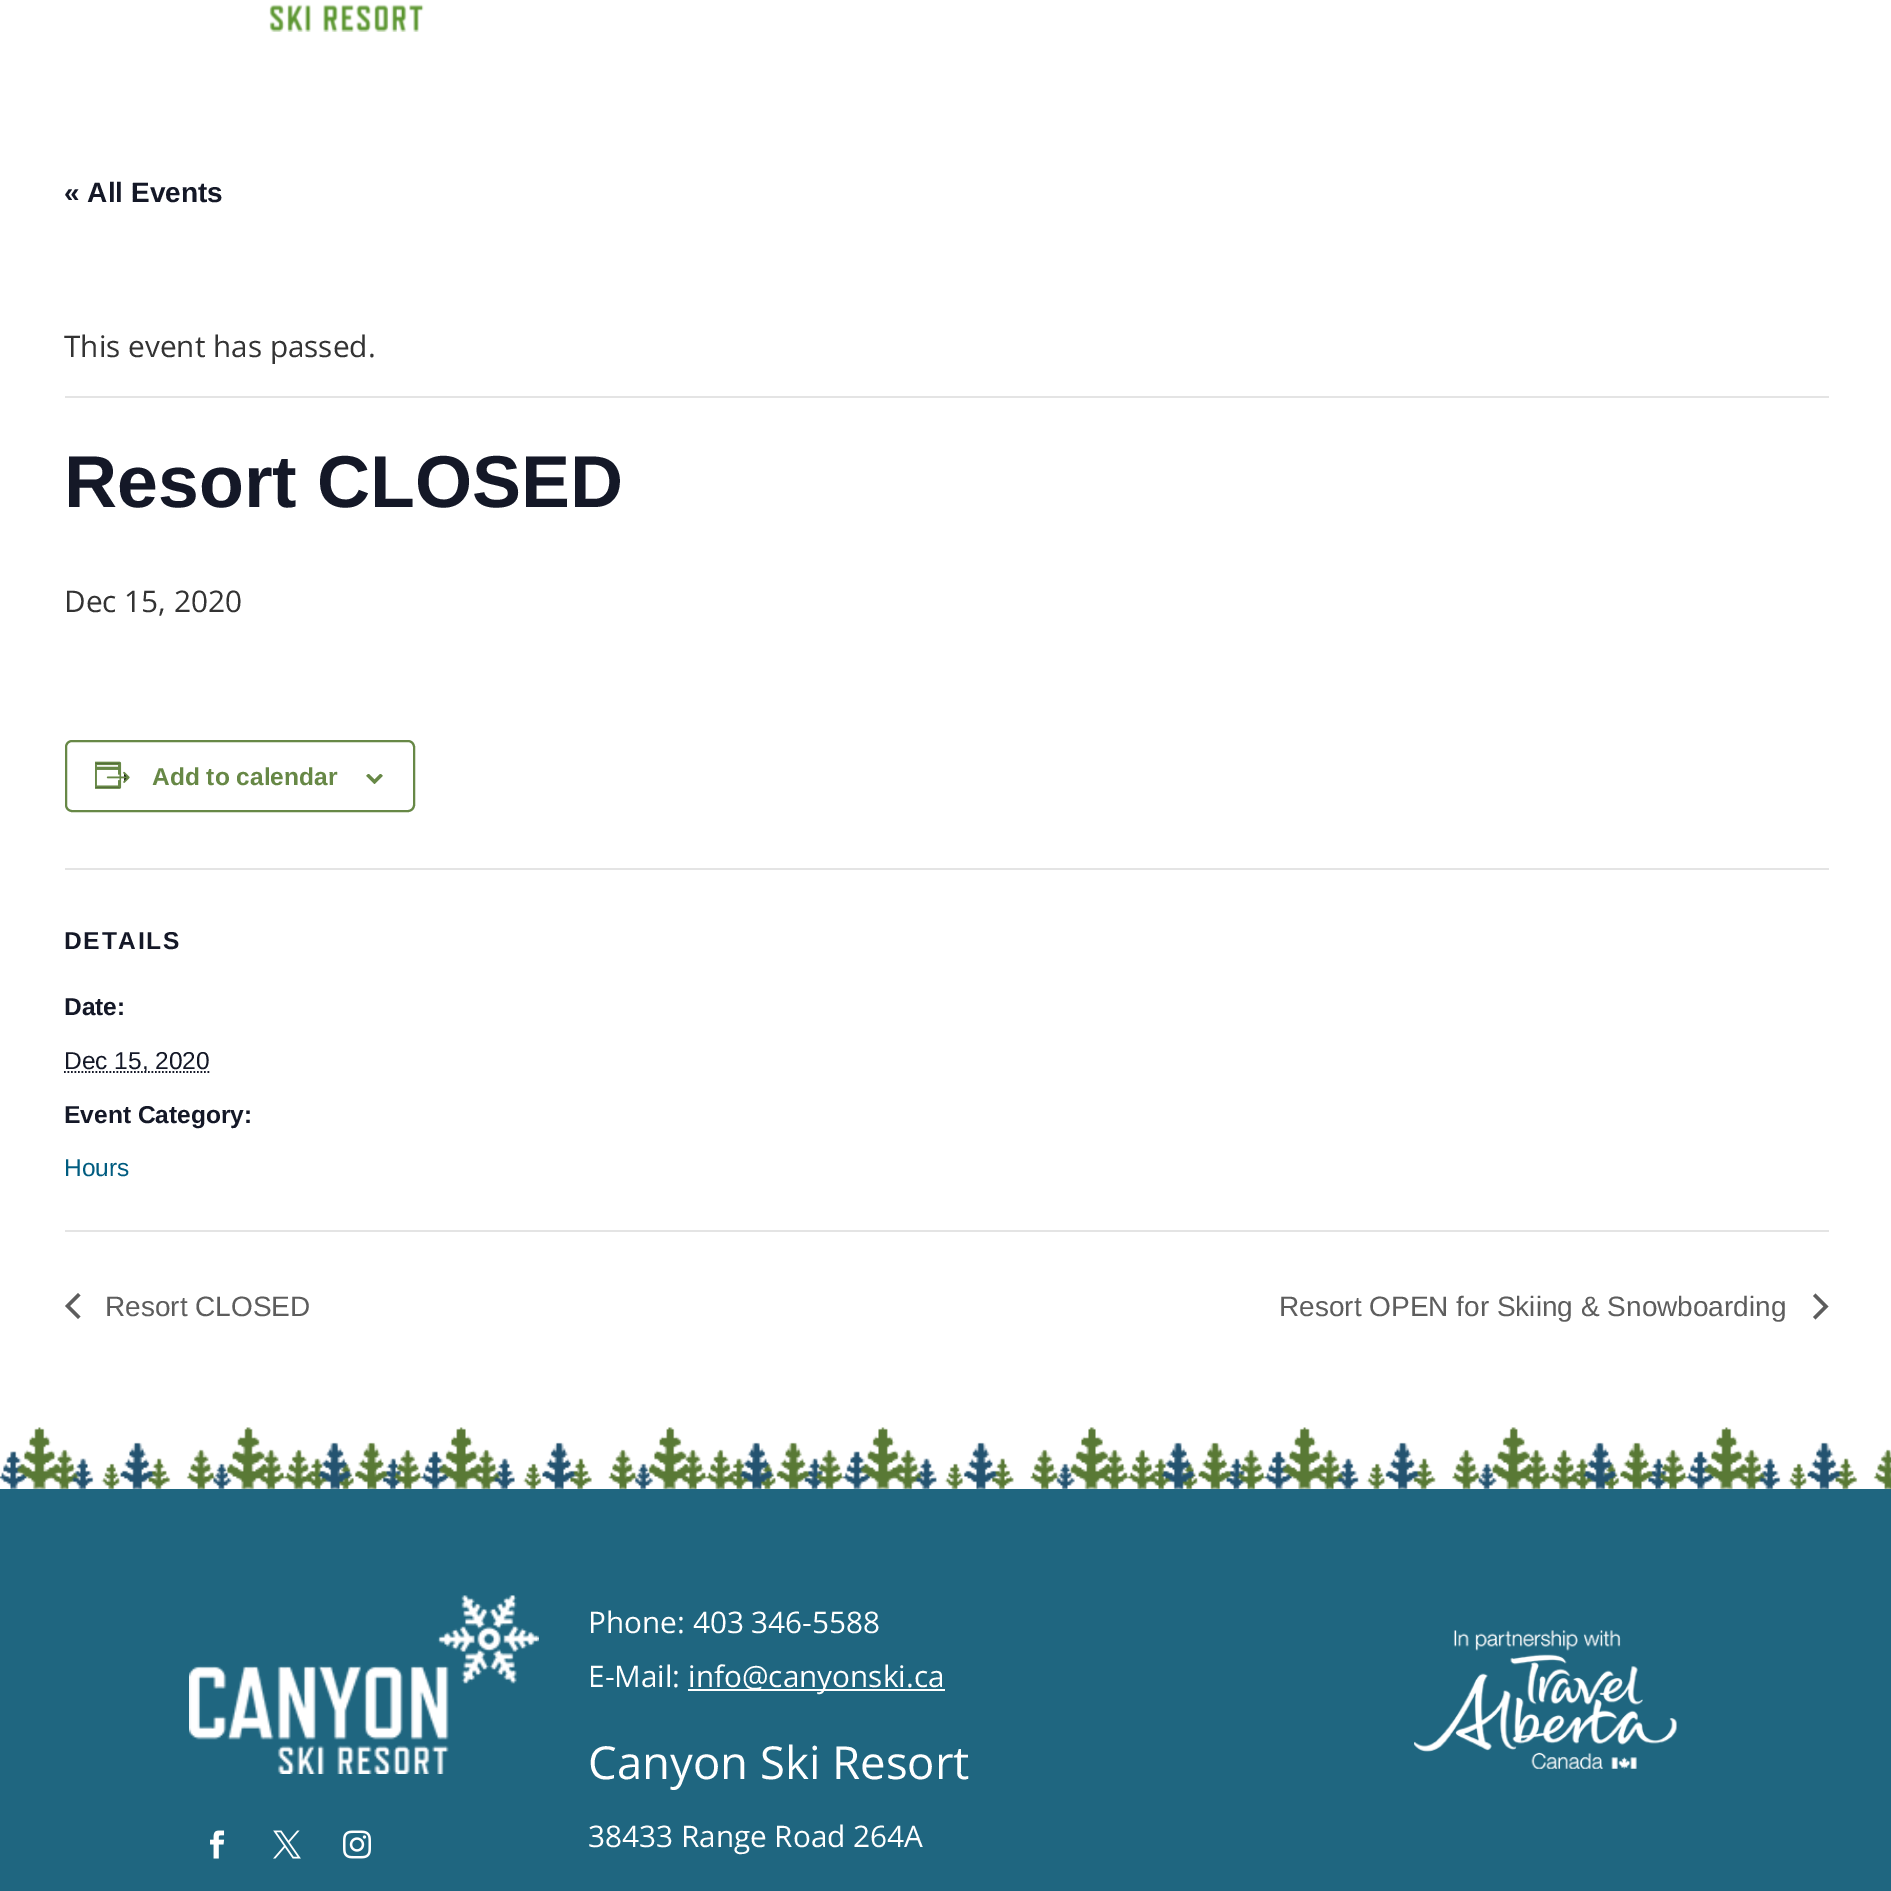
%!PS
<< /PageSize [1891 1891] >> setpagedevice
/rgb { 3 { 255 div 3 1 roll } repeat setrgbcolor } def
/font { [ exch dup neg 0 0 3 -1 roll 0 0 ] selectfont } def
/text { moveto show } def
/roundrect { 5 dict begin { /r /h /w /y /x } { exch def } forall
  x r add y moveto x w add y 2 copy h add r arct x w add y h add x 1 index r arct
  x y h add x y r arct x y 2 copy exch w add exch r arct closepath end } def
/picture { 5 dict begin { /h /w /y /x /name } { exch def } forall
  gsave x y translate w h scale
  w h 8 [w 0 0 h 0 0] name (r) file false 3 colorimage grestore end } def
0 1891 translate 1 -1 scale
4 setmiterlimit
255 255 255 rgb
0 0 1891 1891 rectfill
(img_01.rgb) 269 4 155 28 picture
228 228 228 rgb
65 396 1764 2 rectfill
103 136 70 rgb
2 setlinewidth
66 741 348 70 6 roundrect stroke
(img_02.rgb) 95 761 35 28 picture
(img_03.rgb) 366 774 17 10 picture
228 228 228 rgb
65 868 1764 2 rectfill
20 24 39 rgb
1.8 setlinewidth
[1.75 1.75] 0 setdash
64 1072 moveto 145.5 0 rlineto stroke
228 228 228 rgb
65 1230 1764 2 rectfill
93 93 93 rgb
80.5 1316.5 moveto -2.5 2.5 rlineto -13 -13 rlineto 13 -13 rlineto 2.5 2.5 rlineto -10.5 10.5 rlineto closepath fill
1813 1296 moveto 2.5 -2.5 rlineto 13 13 rlineto -13 13 rlineto -2.5 -2.5 rlineto 10.5 -10.5 rlineto closepath fill
(img_04.rgb) 0 1427 1891 62 picture
31 102 128 rgb
0 1489 1891 402 rectfill
(img_05.rgb) 189 1595 350 179 picture
(img_06.rgb) 210 1830 15 29 picture
(img_07.rgb) 273 1830 28 29 picture
(img_08.rgb) 343 1830 28 29 picture
255 255 255 rgb
688 1689 257 2 rectfill
(img_09.rgb) 1414 1630 263 139 picture
/LiberationSans-Bold 28 font
20 24 39 rgb
(« All Events) 64 202 text
/OpenSans-Regular 29.75 font
51 51 51 rgb
(This event has passed.) 64 357 text
/LiberationSans-Bold 73.5 font
20 24 39 rgb
(Resort CLOSED) 64 507 text
/OpenSans-Regular 29.75 font
51 51 51 rgb
(Dec 15, 2020) 64 612 text
/LiberationSans-Bold 24.5 font
103 136 70 rgb
(Add to calendar) 152 785 text
20 24 39 rgb
64 949 moveto 1.75 0 (DETAILS) ashow
(Date:) 64 1015 text
/LiberationSans-Regular 24.5 font
(Dec 15, 2020) 64 1069 text
/LiberationSans-Bold 24.5 font
(Event Category:) 64 1123 text
/LiberationSans-Regular 24.5 font
0 92 128 rgb
(Hours) 64 1176 text
/LiberationSans-Regular 28 font
93 93 93 rgb
(Resort CLOSED) 105 1316 text
(Resort OPEN for Skiing & Snowboarding) 1279 1316 text
/OpenSans-Regular 29.75 font
255 255 255 rgb
(Phone: 403 346-5588) 588 1633 text
(E-Mail:) 588 1687 text
(info@canyonski.ca) 688 1687 text
/OpenSans-Regular 45.5 font
(Canyon Ski Resort) 588 1779 text
/OpenSans-Regular 29.75 font
(38433 Range Road 264A) 588 1847 text
showpage
